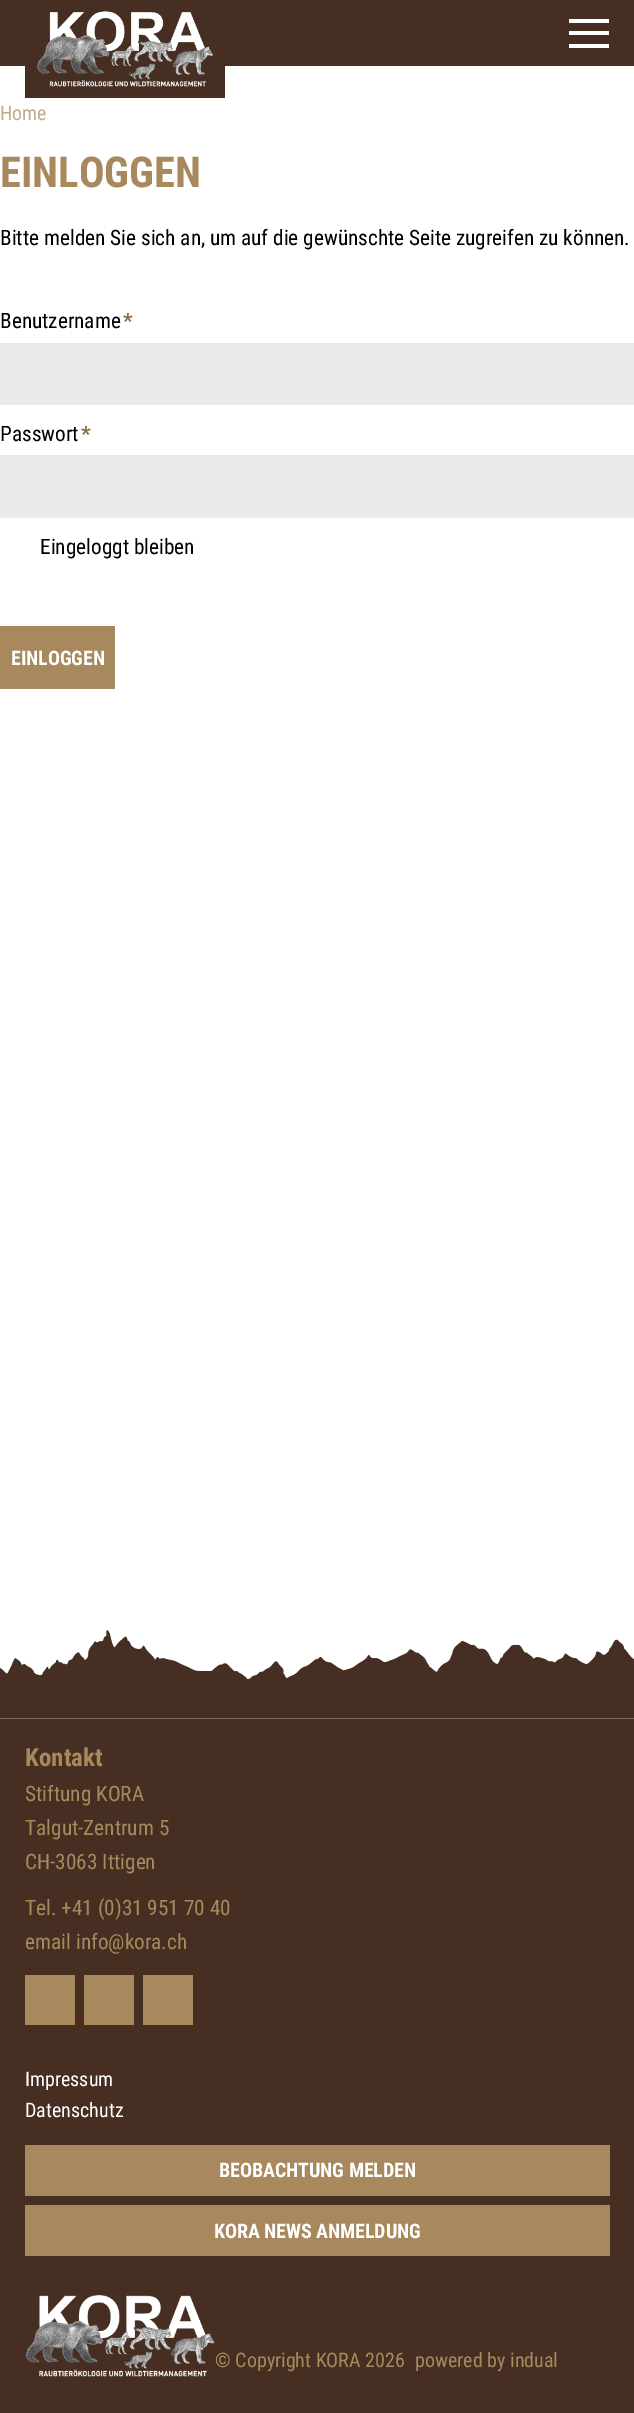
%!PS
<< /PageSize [634 2413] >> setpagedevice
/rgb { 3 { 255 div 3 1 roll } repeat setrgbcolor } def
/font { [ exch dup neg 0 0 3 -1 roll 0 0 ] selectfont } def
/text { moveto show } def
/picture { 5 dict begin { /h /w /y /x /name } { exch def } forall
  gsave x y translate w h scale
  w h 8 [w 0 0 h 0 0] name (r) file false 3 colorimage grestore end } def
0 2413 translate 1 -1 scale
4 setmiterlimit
255 255 255 rgb
0 0 634 2413 rectfill
70 46 34 rgb
0 0 634 66 rectfill
255 255 255 rgb
569 19 40 4 rectfill
569 31 40 4 rectfill
569 44 40 4 rectfill
70 46 34 rgb
25 66 200 32 rectfill
(img_01.rgb) 37 11 177 76 picture
236 234 232 rgb
0 343 634 62 rectfill
0 455 634 63 rectfill
168 137 94 rgb
0 626 115 63 rectfill
70 46 34 rgb
0 1719 634 694 rectfill
(img_02.rgb) 0 1630 634 89 picture
168 137 94 rgb
25 1975 50 50 rectfill
84 1975 50 50 rectfill
143 1975 50 50 rectfill
25 2145 585 51 rectfill
25 2205 585 51 rectfill
(img_03.rgb) 25 2295 190 82 picture
/RobotoCondensed-Regular 20 font
193 171 140 rgb
(Home) 0 120 text
/RobotoCondensed-Bold 42.5 font
168 137 94 rgb
(EINLOGGEN) 0 187 text
/RobotoCondensed-Regular 21.25 font
0 0 0 rgb
(Bitte melden Sie sich an, um auf die gewünschte Seite zugreifen zu können.) 0 245 text
(Benutzername) 0 328 text
/RobotoCondensed-Bold 21.25 font
142 109 70 rgb
(*) 123 328 text
/RobotoCondensed-Regular 21.25 font
0 0 0 rgb
(Passwort) 0 441 text
/RobotoCondensed-Bold 21.25 font
142 109 70 rgb
(*) 81 441 text
/RobotoCondensed-Regular 21.25 font
0 0 0 rgb
(Eingeloggt bleiben) 40 554 text
/RobotoCondensed-Bold 20 font
255 255 255 rgb
11 665 moveto -0.1 0 (EINLOGGEN) ashow
/RobotoCondensed-Bold 25 font
168 137 94 rgb
(Kontakt) 25 1766 text
/RobotoCondensed-Regular 21.25 font
(Stiftung KORA) 25 1801 text
(Talgut-Zentrum 5) 25 1835 text
(CH-3063 Ittigen) 25 1869 text
(Tel. +41 \(0\)31 951 70 40) 25 1915 text
(email info@kora.ch) 25 1949 text
/RobotoCondensed-Regular 20 font
255 255 255 rgb
(Impressum) 25 2086 text
(Datenschutz) 25 2117 text
/RobotoCondensed-Bold 20 font
219 2177 moveto -0.1 0 (BEOBACHTUNG MELDEN) ashow
214 2238 moveto -0.1 0 (KORA NEWS ANMELDUNG) ashow
/RobotoCondensed-Regular 20 font
168 137 94 rgb
(© Copyright KORA 2026) 215 2367 text
(powered by indual) 415 2367 text
showpage
